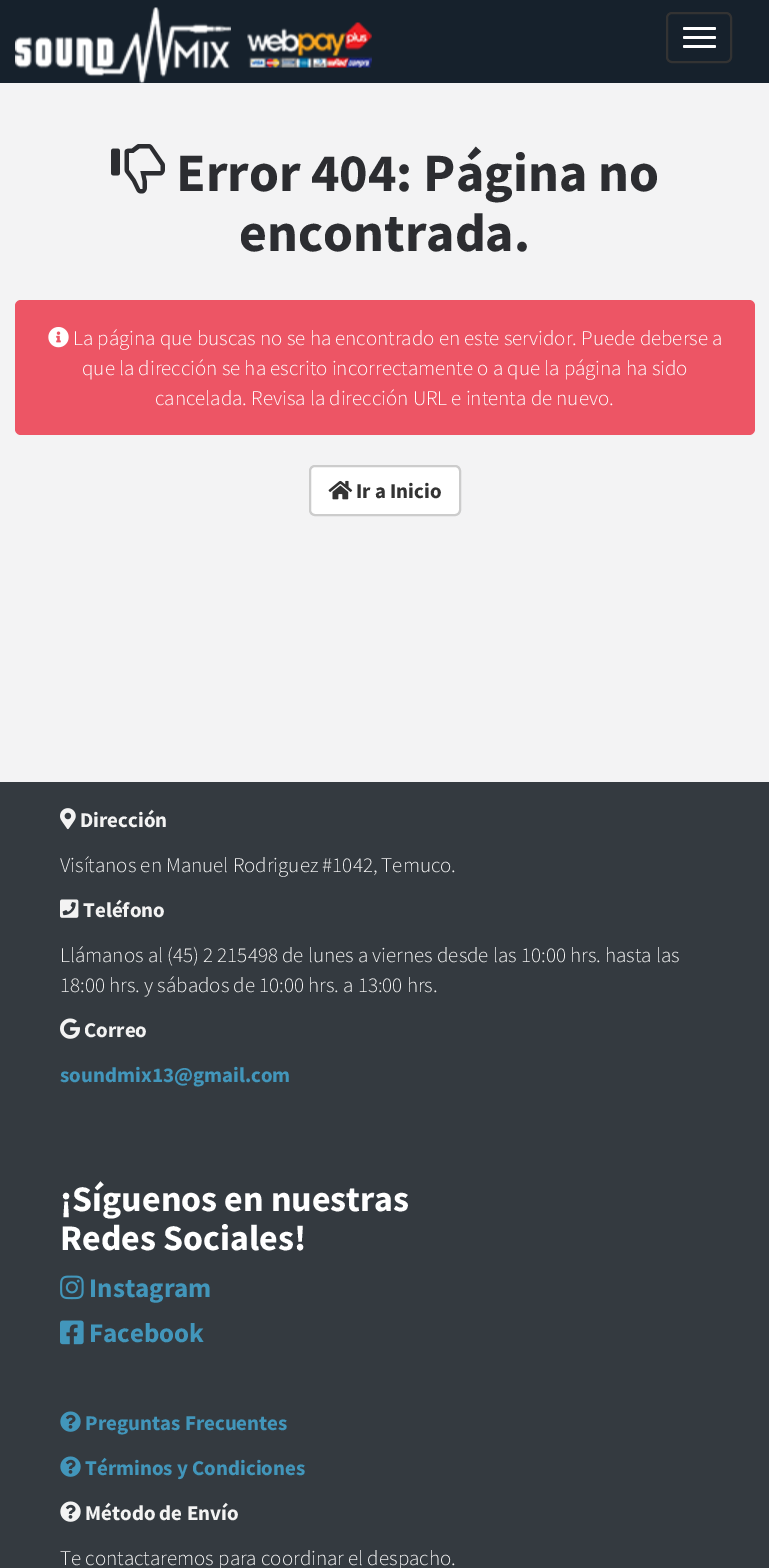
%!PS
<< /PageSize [769 1568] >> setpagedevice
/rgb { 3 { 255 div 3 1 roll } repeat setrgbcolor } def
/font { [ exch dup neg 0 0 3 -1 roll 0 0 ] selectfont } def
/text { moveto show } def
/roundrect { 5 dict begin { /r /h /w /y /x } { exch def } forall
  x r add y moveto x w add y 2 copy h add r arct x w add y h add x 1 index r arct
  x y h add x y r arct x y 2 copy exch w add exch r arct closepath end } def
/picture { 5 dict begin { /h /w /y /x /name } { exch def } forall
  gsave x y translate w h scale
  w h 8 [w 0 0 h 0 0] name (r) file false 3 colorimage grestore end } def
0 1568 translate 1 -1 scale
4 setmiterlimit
243 243 244 rgb
0 0 769 1568 rectfill
22 33 44 rgb
0 0 769 83 rectfill
(img_01.rgb) 15 7 216 76 picture
(img_02.rgb) 247 22 125 46 picture
51 51 51 rgb
2 setlinewidth
667 13 64 49 5 roundrect stroke
255 255 255 rgb
683 27 33 3 1.5 roundrect fill
683 36 33 3 1.5 roundrect fill
683 45 33 3 1.5 roundrect fill
(img_03.rgb) 111 144 54 50 picture
237 85 101 rgb
15 300 740 135 6 roundrect fill
(img_04.rgb) 48 327 21 21 picture
255 255 255 rgb
310 466 150 49 5 roundrect gsave fill grestore
204 204 204 rgb
stroke
(img_05.rgb) 328 480 25 20 picture
52 58 64 rgb
0 782 769 786 rectfill
(img_06.rgb) 60 808 16 22 picture
(img_07.rgb) 60 899 19 19 picture
(img_08.rgb) 60 1018 20 21 picture
(img_09.rgb) 60 1275 24 25 picture
(img_10.rgb) 60 1320 24 25 picture
(img_11.rgb) 60 1411 21 21 picture
(img_11.rgb) 60 1456 21 21 picture
(img_12.rgb) 60 1501 21 21 picture
/SourceSansPro-Bold 54 font
44 45 49 rgb
(Error 404: Página no) 176 191 text
(encontrada.) 239 251 text
/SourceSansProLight-Light 21 font
255 255 255 rgb
(La página que buscas no se ha encontrado en este servidor. Puede deberse a) 73 345 text
(que la dirección se ha escrito incorrectamente o a que la página ha sido) 82 375 text
(cancelada. Revisa la dirección URL e intenta de nuevo.) 155 405 text
/SourceSansPro-Bold 21 font
51 51 51 rgb
(Ir a Inicio) 356 498 text
243 243 243 rgb
(Dirección) 80 827 text
/SourceSansProLight-Light 21 font
(Visítanos en Manuel Rodriguez #1042, Temuco.) 60 872 text
/SourceSansPro-Bold 21 font
(Teléfono) 83 917 text
/SourceSansProLight-Light 21 font
(Llámanos al \(45\) 2 215498 de lunes a viernes desde las 10:00 hrs. hasta las) 60 962 text
(18:00 hrs. y sábados de 10:00 hrs. a 13:00 hrs.) 60 992 text
/SourceSansPro-Bold 21 font
(Correo) 84 1037 text
66 150 187 rgb
(soundmix13@gmail.com) 60 1082 text
/SourceSansPro-Bold 36 font
255 255 255 rgb
(¡Síguenos en nuestras) 60 1211 text
(Redes Sociales!) 60 1250 text
/SourceSansPro-Bold 27 font
66 150 187 rgb
(Instagram) 89 1297 text
(Facebook) 89 1342 text
/SourceSansPro-Bold 21 font
(Preguntas Frecuentes) 85 1430 text
(Términos y Condiciones) 85 1475 text
243 243 243 rgb
(Método de Envío) 85 1520 text
/SourceSansProLight-Light 21 font
(Te contactaremos para coordinar el despacho.) 60 1565 text
showpage
